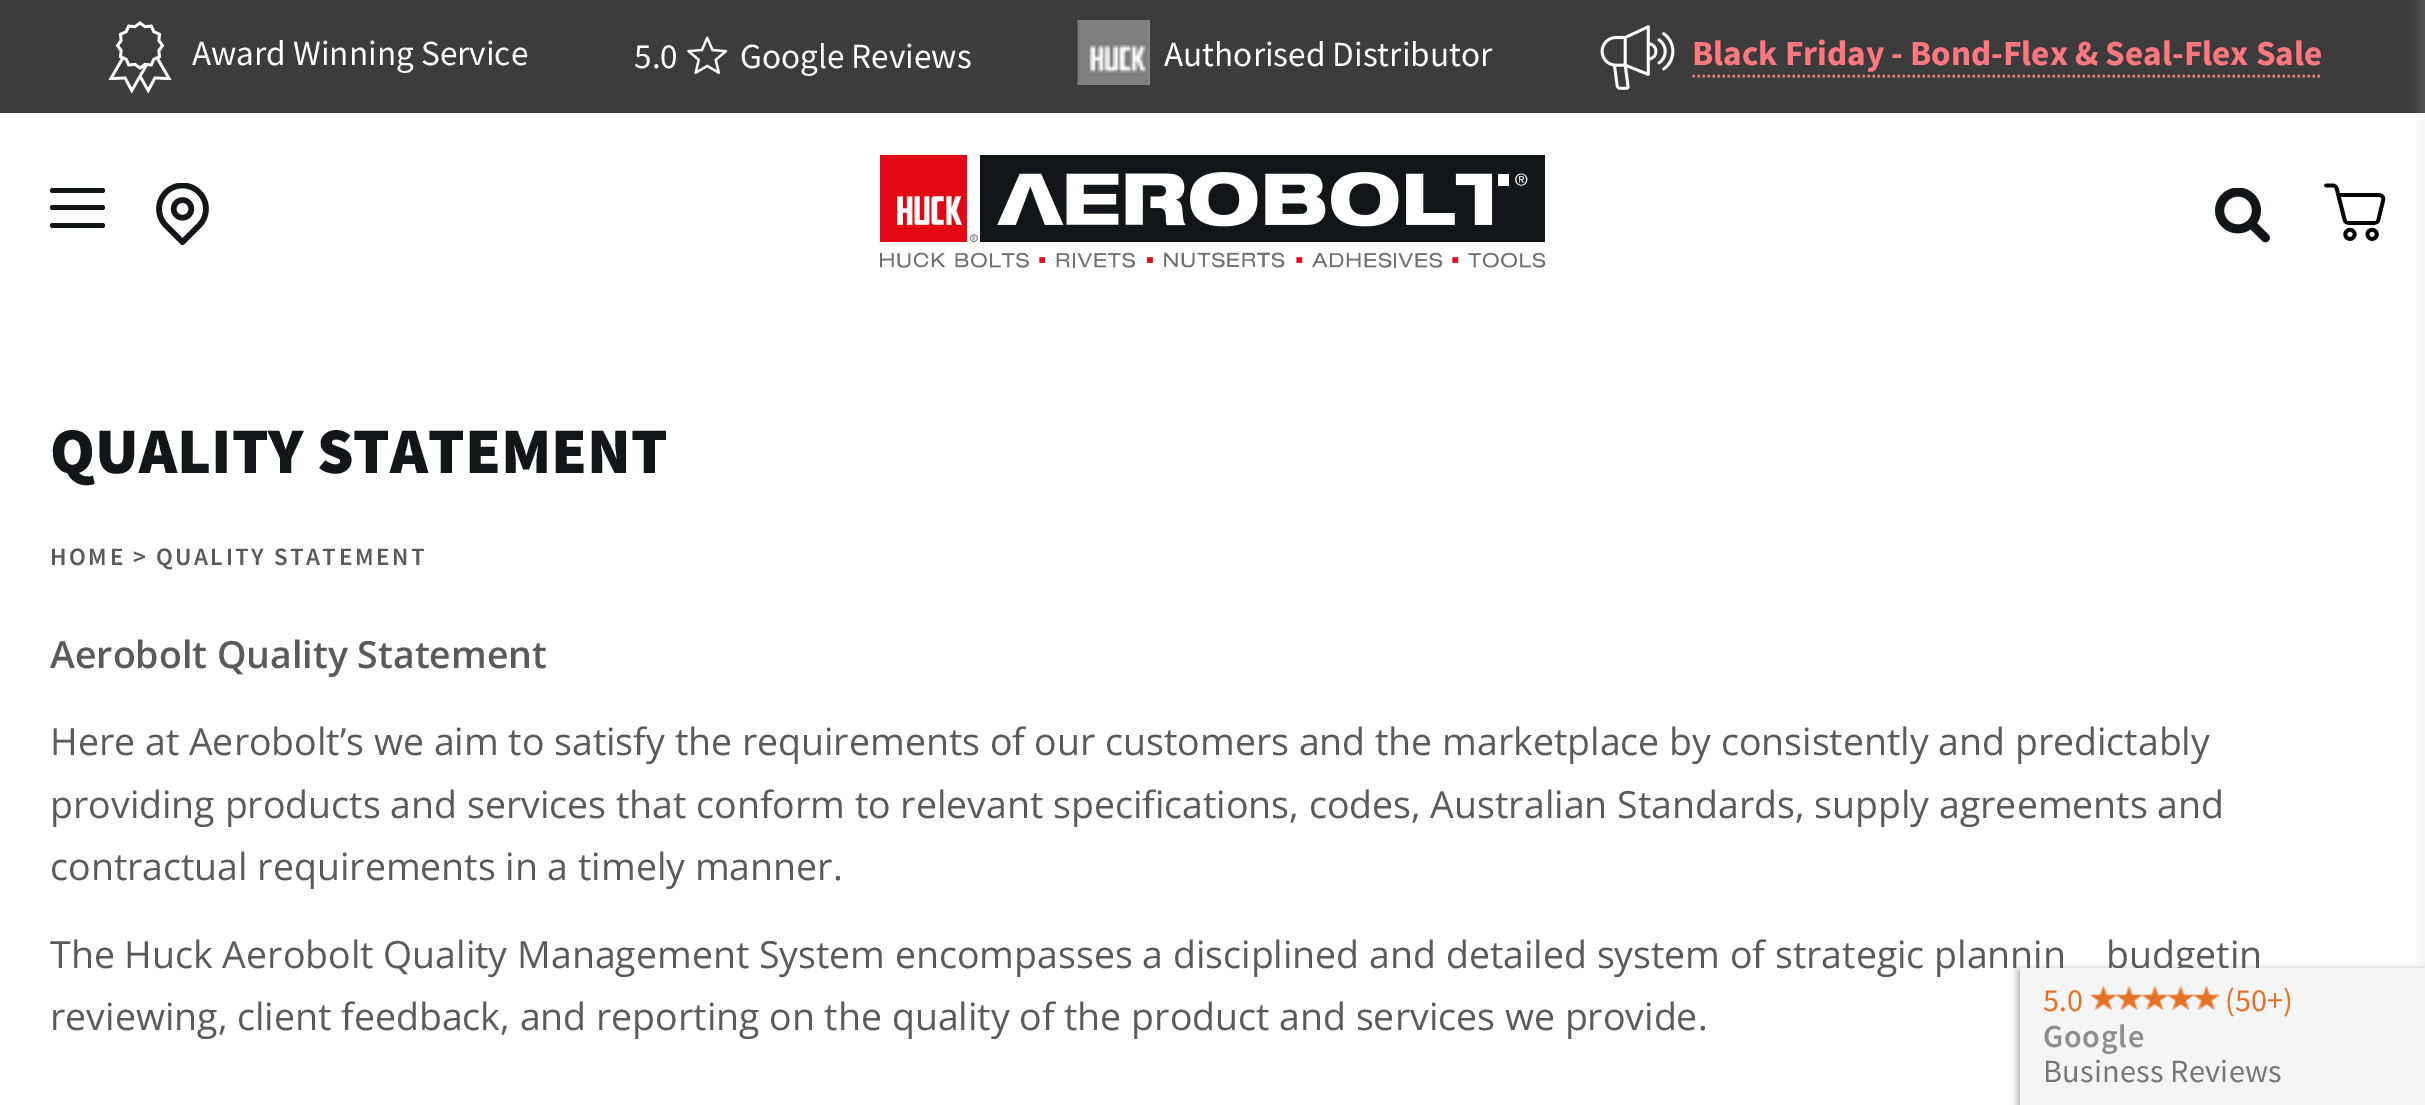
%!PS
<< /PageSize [2425 1105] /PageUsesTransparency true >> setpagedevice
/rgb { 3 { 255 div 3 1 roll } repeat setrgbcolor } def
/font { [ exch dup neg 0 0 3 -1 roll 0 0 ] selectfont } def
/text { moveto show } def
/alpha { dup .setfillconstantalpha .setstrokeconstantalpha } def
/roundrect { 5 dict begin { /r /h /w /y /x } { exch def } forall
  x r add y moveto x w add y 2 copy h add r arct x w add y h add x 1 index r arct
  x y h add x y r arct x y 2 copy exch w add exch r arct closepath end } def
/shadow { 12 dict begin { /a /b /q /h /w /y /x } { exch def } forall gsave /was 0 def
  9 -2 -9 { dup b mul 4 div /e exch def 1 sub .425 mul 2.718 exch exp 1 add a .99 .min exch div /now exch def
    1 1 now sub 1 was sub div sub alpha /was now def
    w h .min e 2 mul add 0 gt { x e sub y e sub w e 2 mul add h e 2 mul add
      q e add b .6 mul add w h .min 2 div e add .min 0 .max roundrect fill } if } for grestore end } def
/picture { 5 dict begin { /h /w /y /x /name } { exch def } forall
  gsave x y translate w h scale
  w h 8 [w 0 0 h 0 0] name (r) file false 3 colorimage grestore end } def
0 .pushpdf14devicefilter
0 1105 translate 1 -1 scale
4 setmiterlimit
255 255 255 rgb
0 0 2425 1105 rectfill
60 60 60 rgb
0 0 2425 113 rectfill
(img_01.rgb) 108 21 64 73 picture
(img_02.rgb) 687 36 41 38 picture
(img_03.rgb) 1077 20 73 65 picture
(img_04.rgb) 1600 25 75 65 picture
255 120 127 rgb
2.5 setlinewidth
[2.5 2.5] 0 setdash
1692.5 76 moveto 630 0 rlineto stroke
17 22 24 rgb
50 188 55 5 2.5 roundrect fill
50 205 55 5 2.5 roundrect fill
50 223 55 5 2.5 roundrect fill
(img_05.rgb) 156 183 53 62 picture
(img_06.rgb) 880 155 665 113 picture
(img_07.rgb) 2215 188 55 55 picture
(img_08.rgb) 2324 183 62 58 picture
201 201 201 rgb
2420 -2 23 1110 0 6 0.2 shadow
162 162 162 rgb
2018 970 405 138 0 4 1 shadow
/SourceSansPro-Regular 35.25 font
255 255 255 rgb
(Award Winning Service) 192 65 text
(5.0) 634 68 text
(Google Reviews) 740 68 text
(Authorised Distributor) 1164 66 text
/SourceSansPro-Bold 35.25 font
255 120 127 rgb
(Black Friday - Bond-Flex & Seal-Flex Sale) 1692 65 text
/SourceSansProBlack-Black 65 font
17 22 24 rgb
(QUALITY STATEMENT) 50 473 text
/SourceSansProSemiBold-SemiBold 25 font
90 89 92 rgb
50 565 moveto 2.5 0 (HOME > QUALITY STATEMENT) ashow
/OpenSans-SemiBold 37.5 font
(Aerobolt Quality Statement) 50 668 text
/OpenSans-Regular 37.5 font
(Here at Aerobolt’s we aim to satisfy the requirements of our customers and the marketplace by consistently and predictably) 50 755 text
(providing products and services that conform to relevant specifications, codes, Australian Standards, supply agreements and) 50 818 text
(contractual requirements in a timely manner.) 50 880 text
(The Huck Aerobolt Quality Management System encompasses a disciplined and detailed system of strategic plannin) 50 968 text
(budgetin) 2106 968 text
(reviewing, client feedback, and reporting on the quality of the product and services we provide.) 50 1030 text
245 245 245 rgb
2020 968 405 137 rectfill
/SourceSansPro-Regular 32.25 font
229 113 37 rgb
(5.0) 2043 1011 text
(img_09.rgb) 2089 985 131 26 picture
(\(50+\)) 2225 1011 text
/SourceSansProSemiBold-SemiBold 32.25 font
142 142 142 rgb
2043 1047 moveto 0.75 0 (Google) ashow
/SourceSansPro-Regular 32.25 font
118 118 118 rgb
2043 1082 moveto 0.25 0 (Business Reviews) ashow
.poppdf14devicefilter showpage
